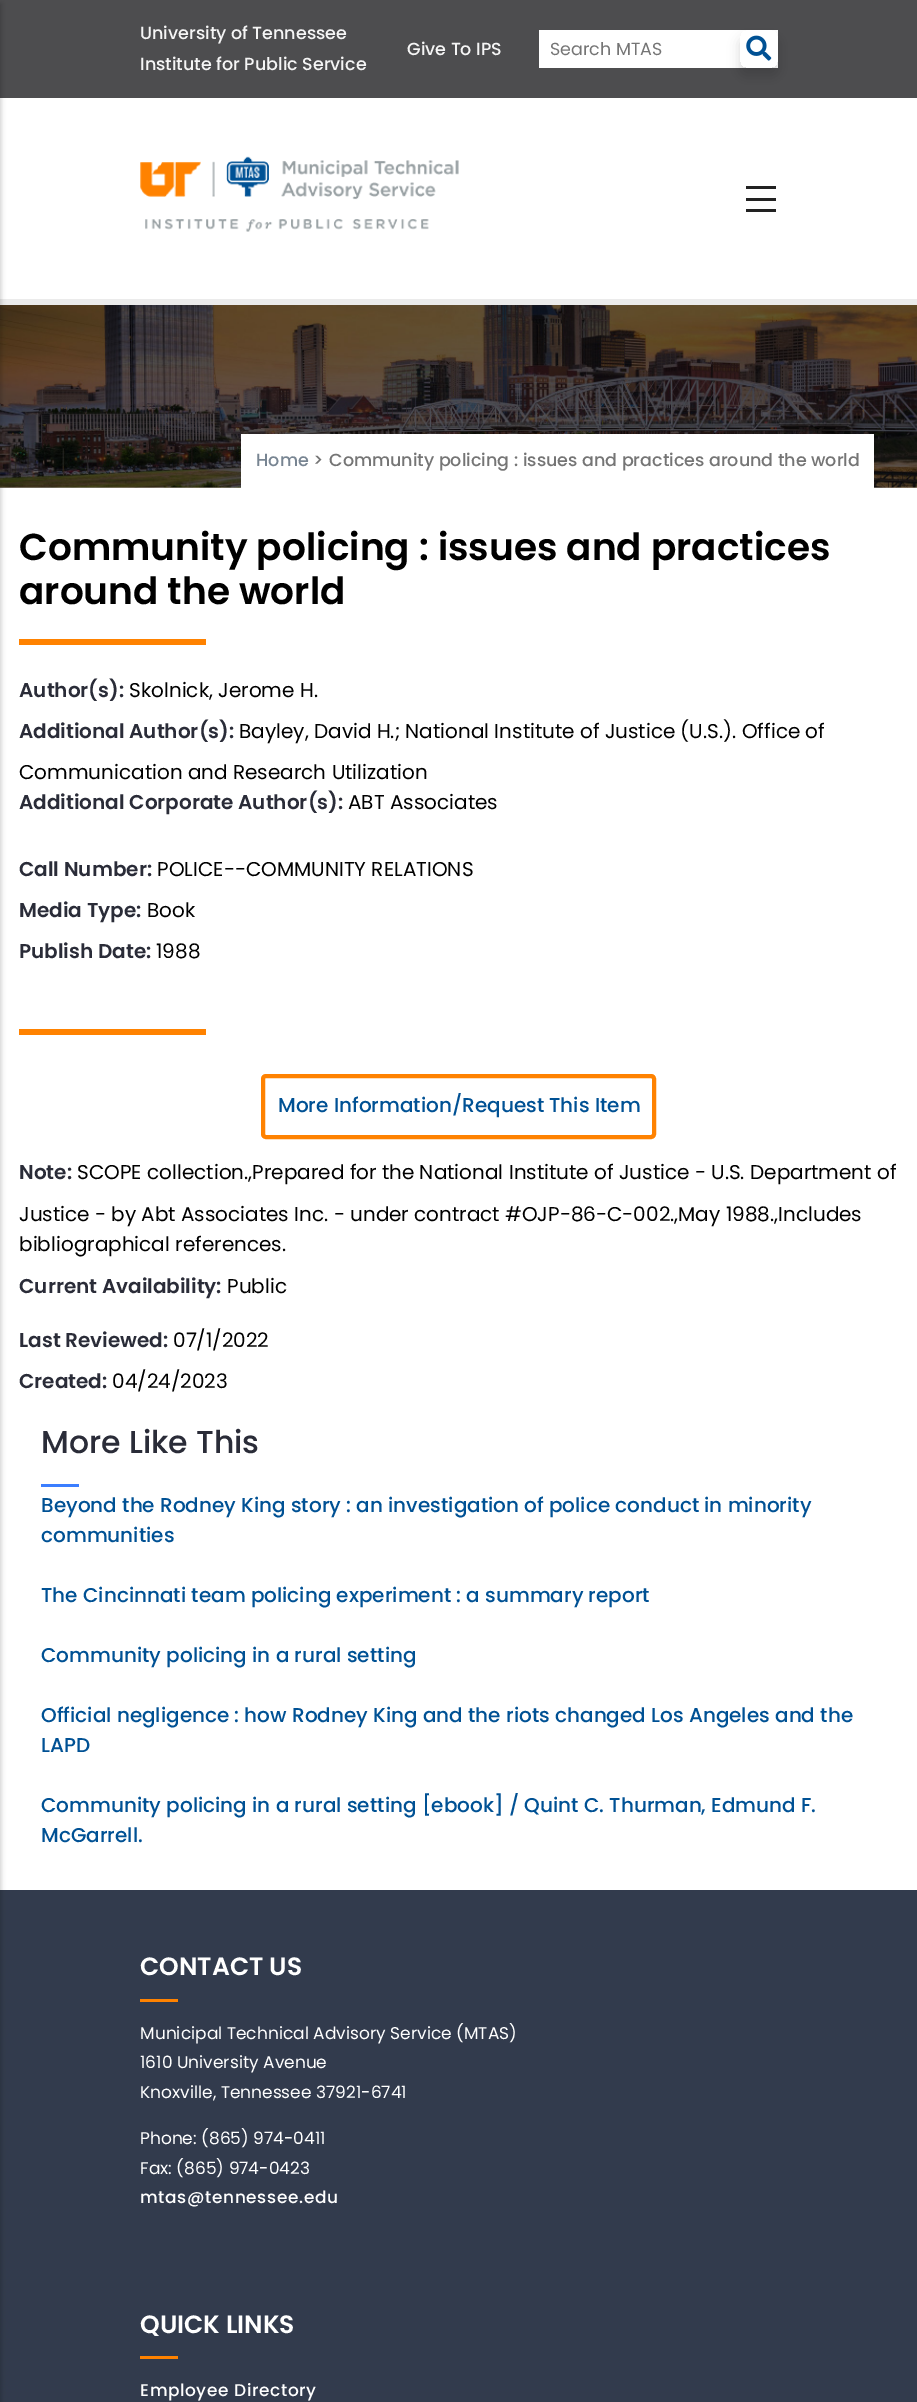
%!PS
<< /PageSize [917 2402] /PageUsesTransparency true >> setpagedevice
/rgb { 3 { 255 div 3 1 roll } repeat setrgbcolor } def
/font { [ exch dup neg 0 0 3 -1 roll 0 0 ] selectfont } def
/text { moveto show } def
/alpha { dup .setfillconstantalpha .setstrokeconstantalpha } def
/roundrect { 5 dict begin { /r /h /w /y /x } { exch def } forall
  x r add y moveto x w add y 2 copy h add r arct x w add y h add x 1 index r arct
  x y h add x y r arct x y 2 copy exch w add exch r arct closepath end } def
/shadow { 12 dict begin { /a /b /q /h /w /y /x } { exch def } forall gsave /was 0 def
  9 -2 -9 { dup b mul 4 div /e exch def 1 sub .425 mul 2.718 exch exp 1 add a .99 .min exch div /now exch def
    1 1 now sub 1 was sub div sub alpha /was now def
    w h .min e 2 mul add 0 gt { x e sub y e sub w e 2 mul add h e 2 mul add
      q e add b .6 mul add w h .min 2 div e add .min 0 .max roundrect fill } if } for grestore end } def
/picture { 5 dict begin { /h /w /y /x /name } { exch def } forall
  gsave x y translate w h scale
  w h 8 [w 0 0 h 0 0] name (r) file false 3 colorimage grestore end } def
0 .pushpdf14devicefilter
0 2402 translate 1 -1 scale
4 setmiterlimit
255 255 255 rgb
0 0 917 2402 rectfill
235 235 235 rgb
0 299 917 6 rectfill
77 77 79 rgb
0 0 917 98 rectfill
(img_03.rgb) 0 487 917 1 picture
(img_04.rgb) 0 305 917 183 picture
50 59 77 rgb
0 1890 917 512 rectfill
0 0 0 rgb
-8 4 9 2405 0 2.5 0.2 shadow
34 34 34 rgb
746 186 30 3 rectfill
746 198 30 3 rectfill
746 209 30 3 rectfill
(img_01.rgb) 140 156 319 76 picture
255 255 255 rgb
539 30 239 38 rectfill
(img_02.rgb) 746 35 26 26 picture
gsave
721 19 moveto 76 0 rlineto 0 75 rlineto -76 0 rlineto closepath 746 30 moveto 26 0 rlineto 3.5 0 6 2.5 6 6 rcurveto 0 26 rlineto 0 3.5 -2.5 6 -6 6 rcurveto -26 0 rlineto -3.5 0 -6 -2.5 -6 -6 rcurveto 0 -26 rlineto 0 -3.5 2.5 -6 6 -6 rcurveto closepath eoclip newpath
0 0 0 rgb
740 38 38 37 6 6 0.15 shadow
grestore
241 434 633 54 rectfill
255 130 0 rgb
19 639 187 6 rectfill
19 1029 187 6 rectfill
4 setlinewidth
263 1076 391 61 3 roundrect stroke
59 126 255 rgb
41 1484 38 3 rectfill
255 130 0 rgb
140 1999 38 3 rectfill
140 2356 38 3 rectfill
/Poppins-Medium 17.5 font
245 245 245 rgb
(University of Tennessee) 140 39 text
(Institute for Public Service) 140 70 text
(Give To IPS) 407 55 text
/Poppins-Regular 17.5 font
117 117 117 rgb
(Search MTAS) 550 55 text
/Poppins-Medium 17.5 font
120 133 146 rgb
(Home) 256 466 text
117 117 117 rgb
(>) 313 466 text
(Community policing : issues and practices around the world) 329 466 text
/Poppins-SemiBold 37.5 font
0 0 0 rgb
(Community policing : issues and practices) 19 560 text
(around the world) 19 604 text
/Poppins-SemiBold 20 font
42 44 56 rgb
(Author\(s\):) 19 697 text
/Poppins-Regular 20 font
0 0 0 rgb
(Skolnick, Jerome H.) 129 697 text
/Poppins-SemiBold 20 font
42 44 56 rgb
(Additional Author\(s\):) 19 738 text
/Poppins-Regular 20 font
0 0 0 rgb
(Bayley, David H.; National Institute of Justice \(U.S.\). Office of) 239 738 text
(Communication and Research Utilization) 19 779 text
/Poppins-SemiBold 20 font
42 44 56 rgb
(Additional Corporate Author\(s\):) 19 809 text
/Poppins-Regular 20 font
0 0 0 rgb
(ABT Associates) 348 809 text
/Poppins-SemiBold 20 font
42 44 56 rgb
(Call Number:) 19 876 text
/Poppins-Regular 20 font
0 0 0 rgb
(POLICE--COMMUNITY RELATIONS) 157 876 text
/Poppins-SemiBold 20 font
42 44 56 rgb
(Media Type:) 19 917 text
/Poppins-Regular 20 font
0 0 0 rgb
(Book) 147 917 text
/Poppins-SemiBold 20 font
42 44 56 rgb
(Publish Date:) 19 958 text
/Poppins-Regular 20 font
0 0 0 rgb
(1988) 156 958 text
/Poppins-Medium 20 font
0 81 148 rgb
(More Information/Request This Item) 278 1112 text
/Poppins-SemiBold 20 font
42 44 56 rgb
(Note:) 19 1179 text
/Poppins-Regular 20 font
0 0 0 rgb
(SCOPE collection.,Prepared for the National Institute of Justice - U.S. Department of) 77 1179 text
(Justice - by Abt Associates Inc. - under contract #OJP-86-C-002.,May 1988.,Includes) 19 1221 text
(bibliographical references.) 19 1251 text
/Poppins-SemiBold 20 font
42 44 56 rgb
(Current Availability:) 19 1293 text
/Poppins-Regular 20 font
0 0 0 rgb
(Public) 227 1293 text
/Poppins-SemiBold 20 font
42 44 56 rgb
(Last Reviewed:) 19 1347 text
/Poppins-Regular 20 font
0 0 0 rgb
(07/1/2022) 173 1347 text
/Poppins-SemiBold 20 font
42 44 56 rgb
(Created:) 19 1388 text
/Poppins-Regular 20 font
0 0 0 rgb
(04/24/2023) 112 1388 text
/Poppins-Medium 31.5 font
42 44 56 rgb
(More Like This) 41 1453 text
/Poppins-Medium 20 font
0 81 148 rgb
(Beyond the Rodney King story : an investigation of police conduct in minority) 41 1512 text
(communities) 41 1542 text
(The Cincinnati team policing experiment : a summary report) 41 1602 text
(Community policing in a rural setting) 41 1662 text
(Official negligence : how Rodney King and the riots changed Los Angeles and the) 41 1722 text
(LAPD) 41 1752 text
(Community policing in a rural setting [ebook] / Quint C. Thurman, Edmund F.) 41 1812 text
(McGarrell.) 41 1842 text
/Poppins-SemiBold 25 font
255 255 255 rgb
(CONTACT US) 140 1975 text
/Poppins-Regular 17 font
(Municipal Technical Advisory Service \(MTAS\)) 140 2039 text
(1610 University Avenue) 140 2068 text
(Knoxville, Tennessee 37921-6741) 140 2098 text
(Phone: \(865\) 974-0411) 140 2144 text
(Fax: \(865\) 974-0423) 140 2174 text
/Poppins-Medium 17 font
140 2203 moveto 0.6 0 (mtas@tennessee.edu) ashow
/Poppins-SemiBold 25 font
(QUICK LINKS) 140 2333 text
/Poppins-Medium 17 font
140 2396 moveto 0.6 0 (Employee Directory) ashow
.poppdf14devicefilter showpage
